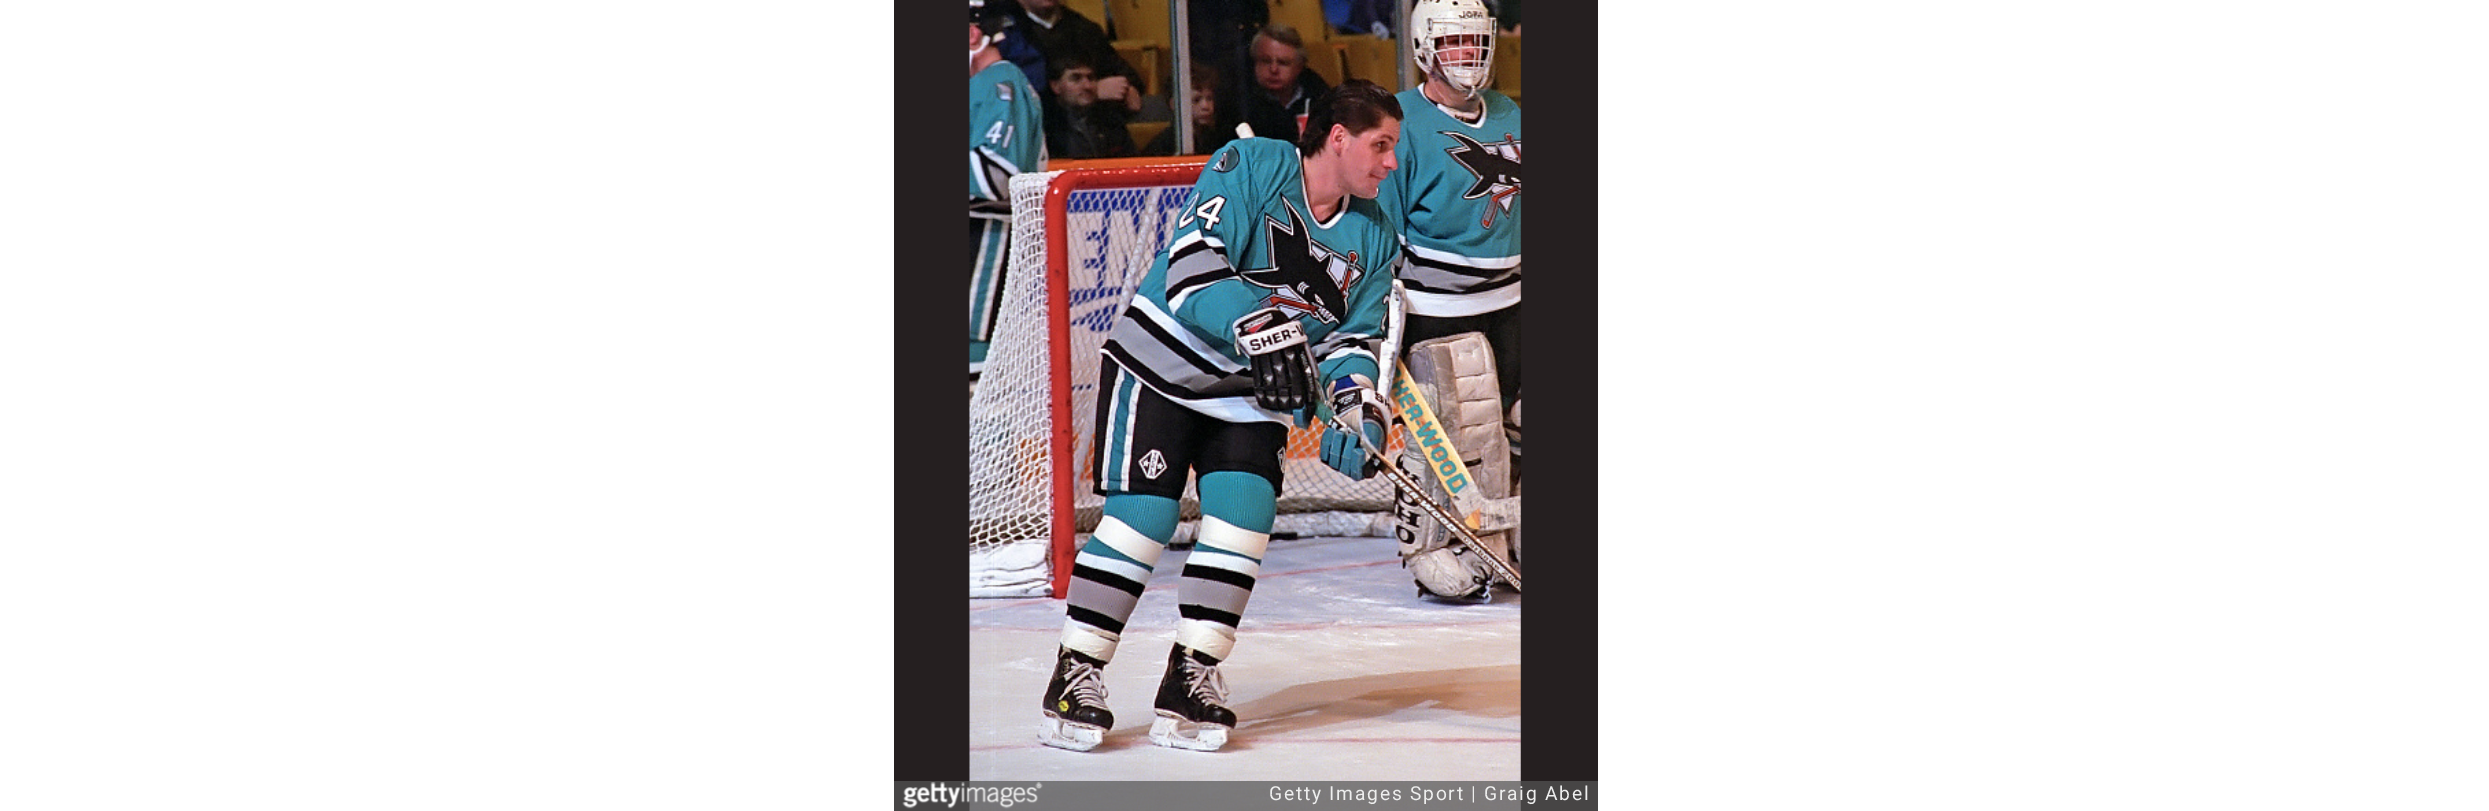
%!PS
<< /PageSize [2489 811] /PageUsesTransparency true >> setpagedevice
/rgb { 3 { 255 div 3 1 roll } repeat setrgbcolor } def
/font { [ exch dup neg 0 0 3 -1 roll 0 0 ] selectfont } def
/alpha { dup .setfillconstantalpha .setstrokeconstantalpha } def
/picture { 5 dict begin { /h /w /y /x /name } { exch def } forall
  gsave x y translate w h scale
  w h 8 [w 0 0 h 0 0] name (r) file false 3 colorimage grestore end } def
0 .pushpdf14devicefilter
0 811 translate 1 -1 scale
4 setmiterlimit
255 255 255 rgb
0 0 2489 811 rectfill
37 31 32 rgb
894 0 704 811 rectfill
(img_01.rgb) 969 0 552 811 picture
0.7 alpha
85 85 85 rgb
894 781 704 30 rectfill
1 alpha
(img_02.rgb) 902 782 141 27 picture
/Roboto-Regular 19.25 font
238 238 238 rgb
1269 800 moveto 1.75 0 (Getty Images Sport | Graig Abel) ashow
.poppdf14devicefilter showpage
